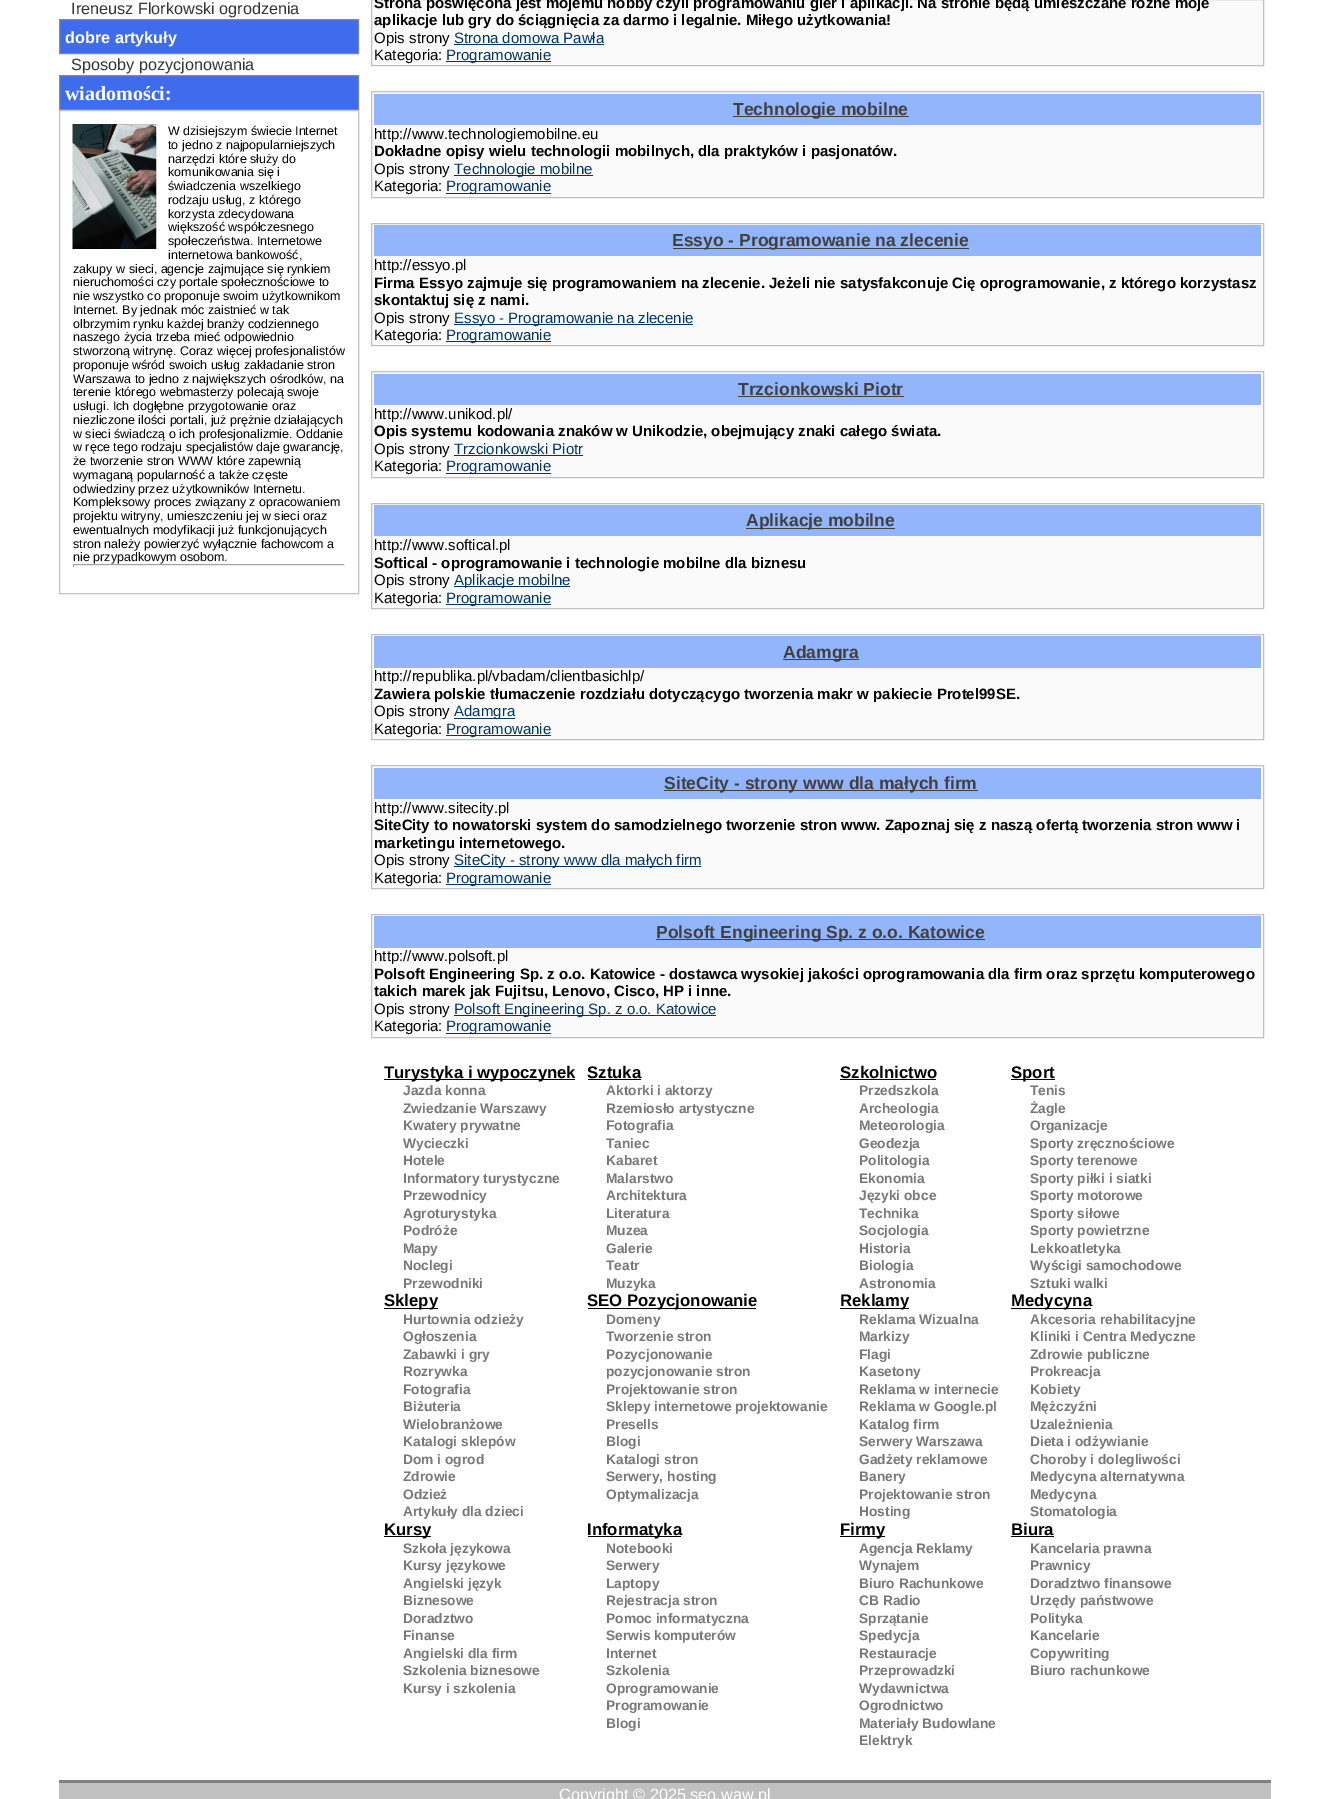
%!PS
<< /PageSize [1329 1799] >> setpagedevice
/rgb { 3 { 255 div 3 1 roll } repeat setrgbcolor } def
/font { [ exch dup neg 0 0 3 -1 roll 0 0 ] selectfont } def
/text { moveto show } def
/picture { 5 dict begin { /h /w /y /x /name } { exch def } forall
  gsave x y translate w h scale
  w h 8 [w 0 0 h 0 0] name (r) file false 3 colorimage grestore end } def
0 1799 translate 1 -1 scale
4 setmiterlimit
255 255 255 rgb
0 0 1329 1799 rectfill
62 108 237 rgb
59.5 19.5 moveto 299 0 rlineto 0 34 rlineto -299 0 rlineto closepath gsave fill grestore
137 137 137 rgb
stroke
62 108 237 rgb
59.5 75.5 moveto 299 0 rlineto 0 34 rlineto -299 0 rlineto closepath gsave fill grestore
137 137 137 rgb
stroke
192 192 192 rgb
59.5 110.5 299 483 rectstroke
(img_01.rgb) 72 124 85 125 picture
159 159 159 rgb
73 564 272 1 rectfill
238 238 238 rgb
344 564 1 3 rectfill
73 565 272 1 rectfill
159 159 159 rgb
73 564 1 3 rectfill
250 250 250 rgb
371.5 -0.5 moveto 892 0 rlineto 0 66 rlineto -892 0 rlineto closepath gsave fill grestore
192 192 192 rgb
stroke
0 51 102 rgb
454 44 150 1 rectfill
446 61 105 1 rectfill
250 250 250 rgb
371.5 91.5 moveto 892 0 rlineto 0 106 rlineto -892 0 rlineto closepath gsave fill grestore
192 192 192 rgb
stroke
146 181 251 rgb
374 94 887 31 rectfill
64 64 64 rgb
733 116 176 1 rectfill
0 51 102 rgb
454 175 139 1 rectfill
446 193 105 1 rectfill
250 250 250 rgb
371.5 223.5 moveto 892 0 rlineto 0 122 rlineto -892 0 rlineto closepath gsave fill grestore
192 192 192 rgb
stroke
146 181 251 rgb
374 225 887 31 rectfill
64 64 64 rgb
673 248 296 1 rectfill
0 51 102 rgb
454 324 239 1 rectfill
446 341 105 1 rectfill
250 250 250 rgb
371.5 371.5 moveto 892 0 rlineto 0 106 rlineto -892 0 rlineto closepath gsave fill grestore
192 192 192 rgb
stroke
146 181 251 rgb
374 374 887 31 rectfill
64 64 64 rgb
738 396 166 1 rectfill
0 51 102 rgb
454 455 129 1 rectfill
446 473 105 1 rectfill
250 250 250 rgb
371.5 503.5 moveto 892 0 rlineto 0 105 rlineto -892 0 rlineto closepath gsave fill grestore
192 192 192 rgb
stroke
146 181 251 rgb
374 505 887 31 rectfill
64 64 64 rgb
746 528 149 1 rectfill
0 51 102 rgb
454 586 116 1 rectfill
446 604 105 1 rectfill
250 250 250 rgb
371.5 634.5 moveto 892 0 rlineto 0 105 rlineto -892 0 rlineto closepath gsave fill grestore
192 192 192 rgb
stroke
146 181 251 rgb
374 636 887 32 rectfill
64 64 64 rgb
783 659 76 1 rectfill
0 51 102 rgb
454 718 61 1 rectfill
446 735 105 1 rectfill
250 250 250 rgb
371.5 765.5 moveto 892 0 rlineto 0 123 rlineto -892 0 rlineto closepath gsave fill grestore
192 192 192 rgb
stroke
146 181 251 rgb
374 768 887 31 rectfill
64 64 64 rgb
664 790 314 1 rectfill
0 51 102 rgb
454 866 247 1 rectfill
446 884 105 1 rectfill
250 250 250 rgb
371.5 914.5 moveto 892 0 rlineto 0 123 rlineto -892 0 rlineto closepath gsave fill grestore
192 192 192 rgb
stroke
146 181 251 rgb
374 916 887 32 rectfill
64 64 64 rgb
656 939 329 1 rectfill
0 51 102 rgb
454 1015 262 1 rectfill
446 1033 105 1 rectfill
0 0 0 rgb
384 1079 191 1 rectfill
588 1079 53 1 rectfill
840 1079 96 1 rectfill
1011 1079 44 1 rectfill
384 1308 54 1 rectfill
588 1308 168 1 rectfill
840 1308 69 1 rectfill
1011 1308 80 1 rectfill
384 1536 47 1 rectfill
588 1536 93 1 rectfill
840 1536 45 1 rectfill
1011 1536 43 1 rectfill
192 192 192 rgb
59 1783 1212 16 rectfill
128 128 128 rgb
59 1780 1212 3 rectfill
/LiberationSans-Regular 16.25 font
51 51 51 rgb
(Ireneusz Florkowski ogrodzenia) 71 14 text
/LiberationSans-Bold 16.25 font
255 255 255 rgb
(dobre artykuły) 65 43 text
/LiberationSans-Regular 16.25 font
51 51 51 rgb
(Sposoby pozycjonowania) 71 70 text
/LiberationSerif-Bold 20 font
255 255 255 rgb
(wiadomości:) 65 100 text
/LiberationSans-Regular 12.5 font
0 0 0 rgb
(W dzisiejszym świecie Internet) 168 135 text
(to jedno z najpopularniejszych) 168 149 text
(narzędzi które służy do) 168 163 text
(komunikowania się i) 168 176 text
(świadczenia wszelkiego) 168 190 text
(rodzaju usług, z którego) 168 204 text
(korzysta zdecydowana) 168 218 text
(większość współczesnego) 168 231 text
(społeczeństwa. Internetowe) 168 245 text
(internetowa bankowość,) 168 259 text
(zakupy w sieci, agencje zajmujące się rynkiem) 73 273 text
(nieruchomości czy portale społecznościowe to) 73 286 text
(nie wszystko co proponuje swoim użytkownikom) 73 300 text
(Internet. By jednak móc zaistnieć w tak) 73 314 text
(olbrzymim rynku każdej branży codziennego) 73 328 text
(naszego życia trzeba mieć odpowiednio) 73 341 text
(stworzoną witrynę. Coraz więcej profesjonalistów) 73 355 text
(proponuje wśród swoich usług zakładanie stron) 73 369 text
(Warszawa to jedno z największych ośrodków, na) 73 383 text
(terenie którego webmasterzy polecają swoje) 73 396 text
(usługi. Ich dogłębne przygotowanie oraz) 73 410 text
(niezliczone ilości portali, już prężnie działających) 73 424 text
(w sieci świadczą o ich profesjonalizmie. Oddanie) 73 438 text
(w ręce tego rodzaju specjalistów daje gwarancję,) 73 451 text
(że tworzenie stron WWW które zapewnią) 73 465 text
(wymaganą popularność a także częste) 73 479 text
(odwiedziny przez użytkowników Internetu.) 73 493 text
(Kompleksowy proces związany z opracowaniem) 73 506 text
(projektu witryny, umieszczeniu jej w sieci oraz) 73 520 text
(ewentualnych modyfikacji już funkcjonujących) 73 534 text
(stron należy powierzyć wyłącznie fachowcom a) 73 548 text
(nie przypadkowym osobom.) 73 561 text
/LiberationSans-Bold 15 font
(Strona poświęcona jest mojemu hobby czyli programowaniu gier i aplikacji. Na stronie będą umieszczane różne moje) 374 8 text
(aplikacje lub gry do ściągnięcia za darmo i legalnie. Miłego użytkowania!) 374 25 text
/LiberationSans-Regular 15 font
(Opis strony) 374 43 text
0 51 102 rgb
(Strona domowa Pawła) 454 43 text
0 0 0 rgb
(Kategoria:) 374 60 text
0 51 102 rgb
(Programowanie) 446 60 text
/LiberationSans-Bold 17.5 font
64 64 64 rgb
(Technologie mobilne) 733 115 text
/LiberationSans-Regular 15 font
0 0 0 rgb
(http://www.technologiemobilne.eu) 374 139 text
/LiberationSans-Bold 15 font
(Dokładne opisy wielu technologii mobilnych, dla praktyków i pasjonatów.) 374 156 text
/LiberationSans-Regular 15 font
(Opis strony) 374 174 text
0 51 102 rgb
(Technologie mobilne) 454 174 text
0 0 0 rgb
(Kategoria:) 374 191 text
0 51 102 rgb
(Programowanie) 446 191 text
/LiberationSans-Bold 17.5 font
64 64 64 rgb
(Essyo - Programowanie na zlecenie) 672 246 text
/LiberationSans-Regular 15 font
0 0 0 rgb
(http://essyo.pl) 374 270 text
/LiberationSans-Bold 15 font
(Firma Essyo zajmuje się programowaniem na zlecenie. Jeżeli nie satysfakconuje Cię oprogramowanie, z którego korzystasz) 374 288 text
(skontaktuj się z nami.) 374 305 text
/LiberationSans-Regular 15 font
(Opis strony) 374 323 text
0 51 102 rgb
(Essyo - Programowanie na zlecenie) 454 323 text
0 0 0 rgb
(Kategoria:) 374 340 text
0 51 102 rgb
(Programowanie) 446 340 text
/LiberationSans-Bold 17.5 font
64 64 64 rgb
(Trzcionkowski Piotr) 738 395 text
/LiberationSans-Regular 15 font
0 0 0 rgb
(http://www.unikod.pl/) 374 419 text
/LiberationSans-Bold 15 font
(Opis systemu kodowania znaków w Unikodzie, obejmujący znaki całego świata.) 374 436 text
/LiberationSans-Regular 15 font
(Opis strony) 374 454 text
0 51 102 rgb
(Trzcionkowski Piotr) 454 454 text
0 0 0 rgb
(Kategoria:) 374 471 text
0 51 102 rgb
(Programowanie) 446 471 text
/LiberationSans-Bold 17.5 font
64 64 64 rgb
(Aplikacje mobilne) 746 526 text
/LiberationSans-Regular 15 font
0 0 0 rgb
(http://www.softical.pl) 374 550 text
/LiberationSans-Bold 15 font
(Softical - oprogramowanie i technologie mobilne dla biznesu) 374 568 text
/LiberationSans-Regular 15 font
(Opis strony) 374 585 text
0 51 102 rgb
(Aplikacje mobilne) 454 585 text
0 0 0 rgb
(Kategoria:) 374 603 text
0 51 102 rgb
(Programowanie) 446 603 text
/LiberationSans-Bold 17.5 font
64 64 64 rgb
(Adamgra) 783 658 text
/LiberationSans-Regular 15 font
0 0 0 rgb
(http://republika.pl/vbadam/clientbasichlp/) 374 681 text
/LiberationSans-Bold 15 font
(Zawiera polskie tłumaczenie rozdziału dotyczącygo tworzenia makr w pakiecie Protel99SE.) 374 699 text
/LiberationSans-Regular 15 font
(Opis strony) 374 716 text
0 51 102 rgb
(Adamgra) 454 716 text
0 0 0 rgb
(Kategoria:) 374 734 text
0 51 102 rgb
(Programowanie) 446 734 text
/LiberationSans-Bold 17.5 font
64 64 64 rgb
(SiteCity - strony www dla małych firm) 664 789 text
/LiberationSans-Regular 15 font
0 0 0 rgb
(http://www.sitecity.pl) 374 813 text
/LiberationSans-Bold 15 font
(SiteCity to nowatorski system do samodzielnego tworzenie stron www. Zapoznaj się z naszą ofertą tworzenia stron www i) 374 830 text
(marketingu internetowego.) 374 848 text
/LiberationSans-Regular 15 font
(Opis strony) 374 865 text
0 51 102 rgb
(SiteCity - strony www dla małych firm) 454 865 text
0 0 0 rgb
(Kategoria:) 374 883 text
0 51 102 rgb
(Programowanie) 446 883 text
/LiberationSans-Bold 17.5 font
64 64 64 rgb
(Polsoft Engineering Sp. z o.o. Katowice) 656 938 text
/LiberationSans-Regular 15 font
0 0 0 rgb
(http://www.polsoft.pl) 374 961 text
/LiberationSans-Bold 15 font
(Polsoft Engineering Sp. z o.o. Katowice - dostawca wysokiej jakości oprogramowania dla firm oraz sprzętu komputerowego) 374 979 text
(takich marek jak Fujitsu, Lenovo, Cisco, HP i inne.) 374 996 text
/LiberationSans-Regular 15 font
(Opis strony) 374 1014 text
0 51 102 rgb
(Polsoft Engineering Sp. z o.o. Katowice) 454 1014 text
0 0 0 rgb
(Kategoria:) 374 1031 text
0 51 102 rgb
(Programowanie) 446 1031 text
/LiberationSans-Bold 16.75 font
0 0 0 rgb
(Turystyka i wypoczynek) 384 1078 text
/LiberationSans-Bold 13.75 font
120 120 120 rgb
(Jazda konna) 403 1095 text
(Zwiedzanie Warszawy) 403 1113 text
(Kwatery prywatne) 403 1130 text
(Wycieczki) 403 1148 text
(Hotele) 403 1165 text
(Informatory turystyczne) 403 1183 text
(Przewodnicy) 403 1200 text
(Agroturystyka) 403 1218 text
(Podróże) 403 1235 text
(Mapy) 403 1253 text
(Noclegi) 403 1270 text
(Przewodniki) 403 1288 text
/LiberationSans-Bold 16.75 font
0 0 0 rgb
(Sztuka) 587 1078 text
/LiberationSans-Bold 13.75 font
120 120 120 rgb
(Aktorki i aktorzy) 606 1095 text
(Rzemiosło artystyczne) 606 1113 text
(Fotografia) 606 1130 text
(Taniec) 606 1148 text
(Kabaret) 606 1165 text
(Malarstwo) 606 1183 text
(Architektura) 606 1200 text
(Literatura) 606 1218 text
(Muzea) 606 1235 text
(Galerie) 606 1253 text
(Teatr) 606 1270 text
(Muzyka) 606 1288 text
/LiberationSans-Bold 16.75 font
0 0 0 rgb
(Szkolnictwo) 840 1078 text
/LiberationSans-Bold 13.75 font
120 120 120 rgb
(Przedszkola) 859 1095 text
(Archeologia) 859 1113 text
(Meteorologia) 859 1130 text
(Geodezja) 859 1148 text
(Politologia) 859 1165 text
(Ekonomia) 859 1183 text
(Języki obce) 859 1200 text
(Technika) 859 1218 text
(Socjologia) 859 1235 text
(Historia) 859 1253 text
(Biologia) 859 1270 text
(Astronomia) 859 1288 text
/LiberationSans-Bold 16.75 font
0 0 0 rgb
(Sport) 1011 1078 text
/LiberationSans-Bold 13.75 font
120 120 120 rgb
(Tenis) 1030 1095 text
(Żagle) 1030 1113 text
(Organizacje) 1030 1130 text
(Sporty zręcznościowe) 1030 1148 text
(Sporty terenowe) 1030 1165 text
(Sporty piłki i siatki) 1030 1183 text
(Sporty motorowe) 1030 1200 text
(Sporty siłowe) 1030 1218 text
(Sporty powietrzne) 1030 1235 text
(Lekkoatletyka) 1030 1253 text
(Wyścigi samochodowe) 1030 1270 text
(Sztuki walki) 1030 1288 text
/LiberationSans-Bold 16.75 font
0 0 0 rgb
(Sklepy) 384 1306 text
/LiberationSans-Bold 13.75 font
120 120 120 rgb
(Hurtownia odzieży) 403 1324 text
(Ogłoszenia) 403 1341 text
(Zabawki i gry) 403 1359 text
(Rozrywka) 403 1376 text
(Fotografia) 403 1394 text
(Biżuteria) 403 1411 text
(Wielobranżowe) 403 1429 text
(Katalogi sklepów) 403 1446 text
(Dom i ogrod) 403 1464 text
(Zdrowie) 403 1481 text
(Odzież) 403 1499 text
(Artykuły dla dzieci) 403 1516 text
/LiberationSans-Bold 16.75 font
0 0 0 rgb
(SEO Pozycjonowanie) 587 1306 text
/LiberationSans-Bold 13.75 font
120 120 120 rgb
(Domeny) 606 1324 text
(Tworzenie stron) 606 1341 text
(Pozycjonowanie) 606 1359 text
(pozycjonowanie stron) 606 1376 text
(Projektowanie stron) 606 1394 text
(Sklepy internetowe projektowanie) 606 1411 text
(Presells) 606 1429 text
(Blogi) 606 1446 text
(Katalogi stron) 606 1464 text
(Serwery, hosting) 606 1481 text
(Optymalizacja) 606 1499 text
/LiberationSans-Bold 16.75 font
0 0 0 rgb
(Reklamy) 840 1306 text
/LiberationSans-Bold 13.75 font
120 120 120 rgb
(Reklama Wizualna) 859 1324 text
(Markizy) 859 1341 text
(Flagi) 859 1359 text
(Kasetony) 859 1376 text
(Reklama w internecie) 859 1394 text
(Reklama w Google.pl) 859 1411 text
(Katalog firm) 859 1429 text
(Serwery Warszawa) 859 1446 text
(Gadżety reklamowe) 859 1464 text
(Banery) 859 1481 text
(Projektowanie stron) 859 1499 text
(Hosting) 859 1516 text
/LiberationSans-Bold 16.75 font
0 0 0 rgb
(Medycyna) 1011 1306 text
/LiberationSans-Bold 13.75 font
120 120 120 rgb
(Akcesoria rehabilitacyjne) 1030 1324 text
(Kliniki i Centra Medyczne) 1030 1341 text
(Zdrowie publiczne) 1030 1359 text
(Prokreacja) 1030 1376 text
(Kobiety) 1030 1394 text
(Mężczyźni) 1030 1411 text
(Uzależnienia) 1030 1429 text
(Dieta i odżywianie) 1030 1446 text
(Choroby i dolegliwości) 1030 1464 text
(Medycyna alternatywna) 1030 1481 text
(Medycyna) 1030 1499 text
(Stomatologia) 1030 1516 text
/LiberationSans-Bold 16.75 font
0 0 0 rgb
(Kursy) 384 1535 text
/LiberationSans-Bold 13.75 font
120 120 120 rgb
(Szkoła językowa) 403 1553 text
(Kursy językowe) 403 1570 text
(Angielski język) 403 1588 text
(Biznesowe) 403 1605 text
(Doradztwo) 403 1623 text
(Finanse) 403 1640 text
(Angielski dla firm) 403 1658 text
(Szkolenia biznesowe) 403 1675 text
(Kursy i szkolenia) 403 1693 text
/LiberationSans-Bold 16.75 font
0 0 0 rgb
(Informatyka) 587 1535 text
/LiberationSans-Bold 13.75 font
120 120 120 rgb
(Notebooki) 606 1553 text
(Serwery) 606 1570 text
(Laptopy) 606 1588 text
(Rejestracja stron) 606 1605 text
(Pomoc informatyczna) 606 1623 text
(Serwis komputerów) 606 1640 text
(Internet) 606 1658 text
(Szkolenia) 606 1675 text
(Oprogramowanie) 606 1693 text
(Programowanie) 606 1710 text
(Blogi) 606 1728 text
/LiberationSans-Bold 16.75 font
0 0 0 rgb
(Firmy) 840 1535 text
/LiberationSans-Bold 13.75 font
120 120 120 rgb
(Agencja Reklamy) 859 1553 text
(Wynajem) 859 1570 text
(Biuro Rachunkowe) 859 1588 text
(CB Radio) 859 1605 text
(Sprzątanie) 859 1623 text
(Spedycja) 859 1640 text
(Restauracje) 859 1658 text
(Przeprowadzki) 859 1675 text
(Wydawnictwa) 859 1693 text
(Ogrodnictwo) 859 1710 text
(Materiały Budowlane) 859 1728 text
(Elektryk) 859 1745 text
/LiberationSans-Bold 16.75 font
0 0 0 rgb
(Biura) 1011 1535 text
/LiberationSans-Bold 13.75 font
120 120 120 rgb
(Kancelaria prawna) 1030 1553 text
(Prawnicy) 1030 1570 text
(Doradztwo finansowe) 1030 1588 text
(Urzędy państwowe) 1030 1605 text
(Polityka) 1030 1623 text
(Kancelarie) 1030 1640 text
(Copywriting) 1030 1658 text
(Biuro rachunkowe) 1030 1675 text
/LiberationSans-Regular 16.25 font
255 255 255 rgb
(Copyright © 2025 seo.waw.pl) 559 1800 text
showpage
